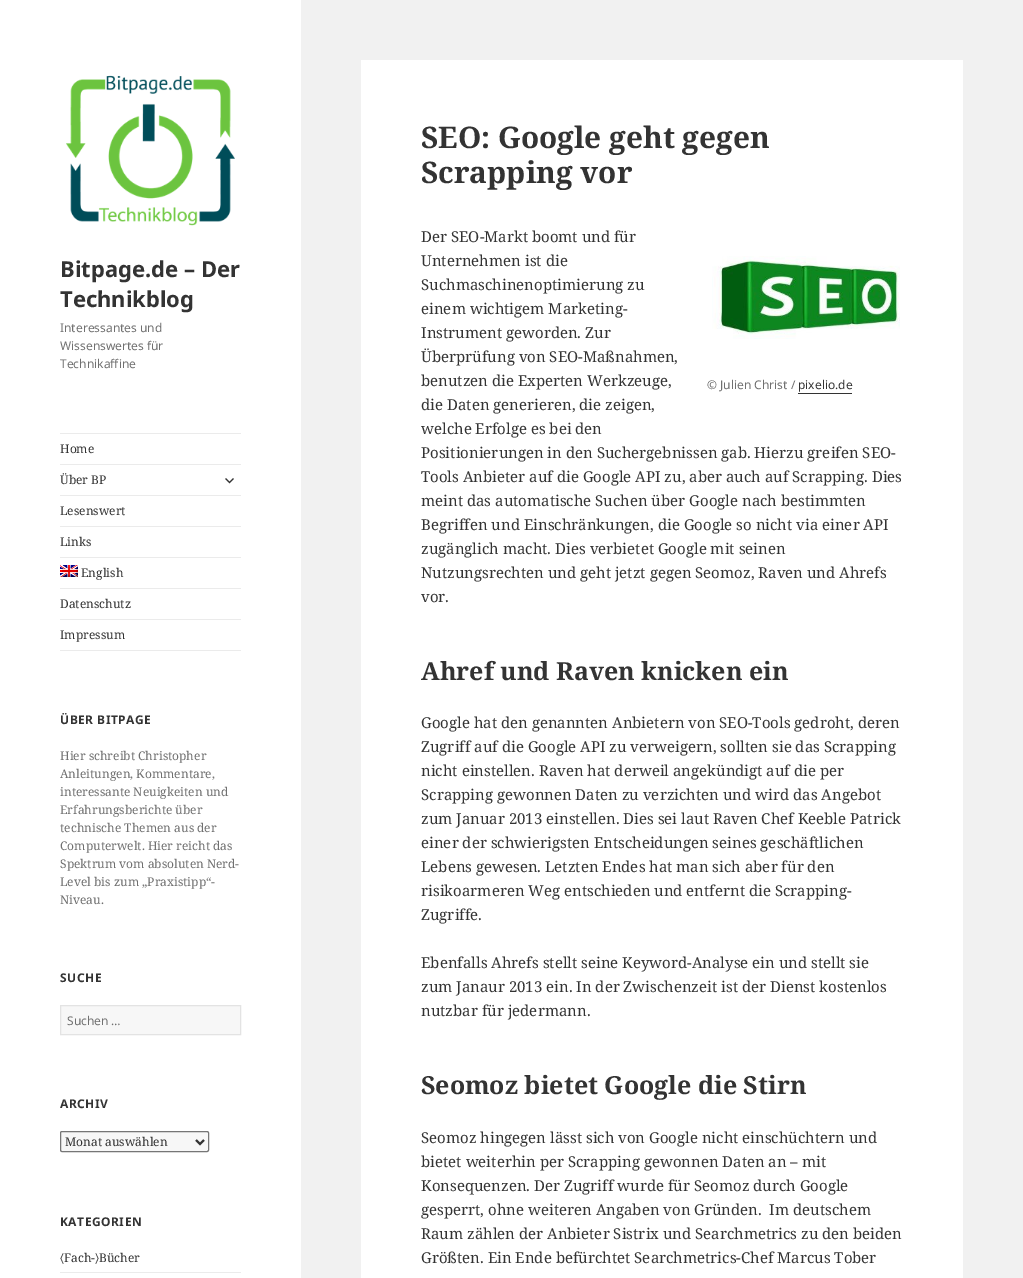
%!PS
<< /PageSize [1023 1278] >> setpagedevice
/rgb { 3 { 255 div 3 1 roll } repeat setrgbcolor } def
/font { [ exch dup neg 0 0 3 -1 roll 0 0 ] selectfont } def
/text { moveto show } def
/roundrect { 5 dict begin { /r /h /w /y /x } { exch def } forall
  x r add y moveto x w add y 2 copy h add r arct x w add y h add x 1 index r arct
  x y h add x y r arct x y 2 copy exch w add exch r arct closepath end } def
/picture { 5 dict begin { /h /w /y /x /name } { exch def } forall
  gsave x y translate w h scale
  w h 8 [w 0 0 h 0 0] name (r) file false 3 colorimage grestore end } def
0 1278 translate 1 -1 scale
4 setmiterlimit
241 241 241 rgb
0 0 1023 1278 rectfill
255 255 255 rgb
0 0 301 1278 rectfill
(img_01.rgb) 66 75 169 151 picture
235 235 235 rgb
60 433 181 1 rectfill
60 650 181 1 rectfill
60 464 181 1 rectfill
(img_02.rgb) 225 478 9 6 picture
60 495 181 1 rectfill
60 526 181 1 rectfill
60 557 181 1 rectfill
(img_03.rgb) 60 565 18 12 picture
60 588 181 1 rectfill
60 619 181 1 rectfill
247 247 247 rgb
60.5 1005.5 moveto 180 0 rlineto 0 29 rlineto -180 0 rlineto closepath gsave fill grestore
227 227 227 rgb
stroke
247 247 247 rgb
60.5 1131.5 148 20 1.5 roundrect gsave fill grestore
118 118 118 rgb
stroke
51 51 51 rgb
2 setlinewidth
196 1140 moveto 4 4 rlineto 4 -4 rlineto stroke
235 235 235 rgb
60 1272 181 1 rectfill
255 255 255 rgb
361 60 602 1218 rectfill
(img_04.rgb) 712 256 188 83 picture
51 51 51 rgb
798 393 54 1 rectfill
/NotoSans-Bold 22 font
(Bitpage.de – Der) 60 277 text
(Technikblog) 60 307 text
/NotoSans-Regular 12 font
112 112 112 rgb
(Interessantes und) 60 332 text
(Wissenswertes für) 60 350 text
(Technikaffine) 60 368 text
/NotoSerif-Regular 12 font
51 51 51 rgb
(Home) 60 453 text
(Über BP) 60 484 text
(Lesenswert) 60 515 text
(Links) 60 546 text
(English) 81 577 text
(Datenschutz) 60 608 text
(Impressum) 60 639 text
/NotoSans-Bold 12 font
60 724 moveto 0.5 0 (ÜBER BITPAGE) ashow
/NotoSerif-Regular 12 font
112 112 112 rgb
(Hier schreibt Christopher) 60 760 text
(Anleitungen, Kommentare,) 60 778 text
(interessante Neuigkeiten und) 60 796 text
(Erfahrungsberichte über) 60 814 text
(technische Themen aus der) 60 832 text
(Computerwelt. Hier reicht das) 60 850 text
(Spektrum vom absoluten Nerd-) 60 868 text
(Level bis zum „Praxistipp“-) 60 886 text
(Niveau.) 60 904 text
/NotoSans-Bold 12 font
51 51 51 rgb
60 982 moveto 0.5 0 (SUCHE) ashow
/NotoSans-Regular 12 font
112 112 112 rgb
(Suchen …) 67 1025 text
/NotoSans-Bold 12 font
51 51 51 rgb
60 1108 moveto 0.5 0 (ARCHIV) ashow
/NotoSerif-Regular 12 font
(Monat auswählen) 65 1146 text
/NotoSans-Bold 12 font
60 1226 moveto 0.5 0 (KATEGORIEN) ashow
/FreeSans-Regular 12 font
(〈) 60 1262 text
/NotoSerif-Regular 12 font
(Fach-) 64 1262 text
/FreeSans-Regular 12 font
(〉) 95 1262 text
/NotoSerif-Regular 12 font
(Bücher) 99 1262 text
/NotoSerif-Bold 29.75 font
(SEO: Google geht gegen) 421 148 text
(Scrapping vor) 421 183 text
/NotoSerif-Regular 15 font
(Der SEO-Markt boomt und für) 421 242 text
(Unternehmen ist die) 421 266 text
(Suchmaschinenoptimierung zu) 421 290 text
(einem wichtigem Marketing-) 421 314 text
(Instrument geworden. Zur) 421 338 text
(Überprüfung von SEO-Maßnahmen,) 421 362 text
(benutzen die Experten Werkzeuge,) 421 386 text
(die Daten generieren, die zeigen,) 421 410 text
(welche Erfolge es bei den) 421 434 text
(Positionierungen in den Suchergebnissen gab. Hierzu greifen SEO-) 421 458 text
(Tools Anbieter auf die Google API zu, aber auch auf Scrapping. Dies) 421 482 text
(meint das automatische Suchen über Google nach bestimmten) 421 506 text
(Begriffen und Einschränkungen, die Google so nicht via einer API) 421 530 text
(zugänglich macht. Dies verbietet Google mit seinen) 421 554 text
(Nutzungsrechten und geht jetzt gegen Seomoz, Raven und Ahrefs) 421 578 text
(vor.) 421 602 text
/NotoSans-Regular 12 font
112 112 112 rgb
(© Julien Christ /) 707 389 text
51 51 51 rgb
(pixelio.de) 798 389 text
/NotoSerif-Bold 24.9 font
(Ahref und Raven knicken ein) 421 680 text
/NotoSerif-Regular 15 font
(Google hat den genannten Anbietern von SEO-Tools gedroht, deren) 421 728 text
(Zugriff auf die Google API zu verweigern, sollten sie das Scrapping) 421 752 text
(nicht einstellen. Raven hat derweil angekündigt auf die per) 421 776 text
(Scrapping gewonnen Daten zu verzichten und wird das Angebot) 421 800 text
(zum Januar 2013 einstellen. Dies sei laut Raven Chef Keeble Patrick) 421 824 text
(einer der schwierigsten Entscheidungen seines geschäftlichen) 421 848 text
(Lebens gewesen. Letzten Endes hat man sich aber für den) 421 872 text
(risikoarmeren Weg entschieden und entfernt die Scrapping-) 421 896 text
(Zugriffe.) 421 920 text
(Ebenfalls Ahrefs stellt seine Keyword-Analyse ein und stellt sie) 421 968 text
(zum Janaur 2013 ein. In der Zwischenzeit ist der Dienst kostenlos) 421 992 text
(nutzbar für jedermann.) 421 1016 text
/NotoSerif-Bold 24.9 font
(Seomoz bietet Google die Stirn) 421 1094 text
/NotoSerif-Regular 15 font
(Seomoz hingegen lässt sich von Google nicht einschüchtern und) 421 1143 text
(bietet weiterhin per Scrapping gewonnen Daten an – mit) 421 1167 text
(Konsequenzen. Der Zugriff wurde für Seomoz durch Google) 421 1191 text
(gesperrt, ohne weiteren Angaben von Gründen.  Im deutschem) 421 1215 text
(Raum zählen der Anbieter Sistrix und Searchmetrics zu den beiden) 421 1239 text
(Größten. Ein Ende befürchtet Searchmetrics-Chef Marcus Tober) 421 1263 text
showpage
